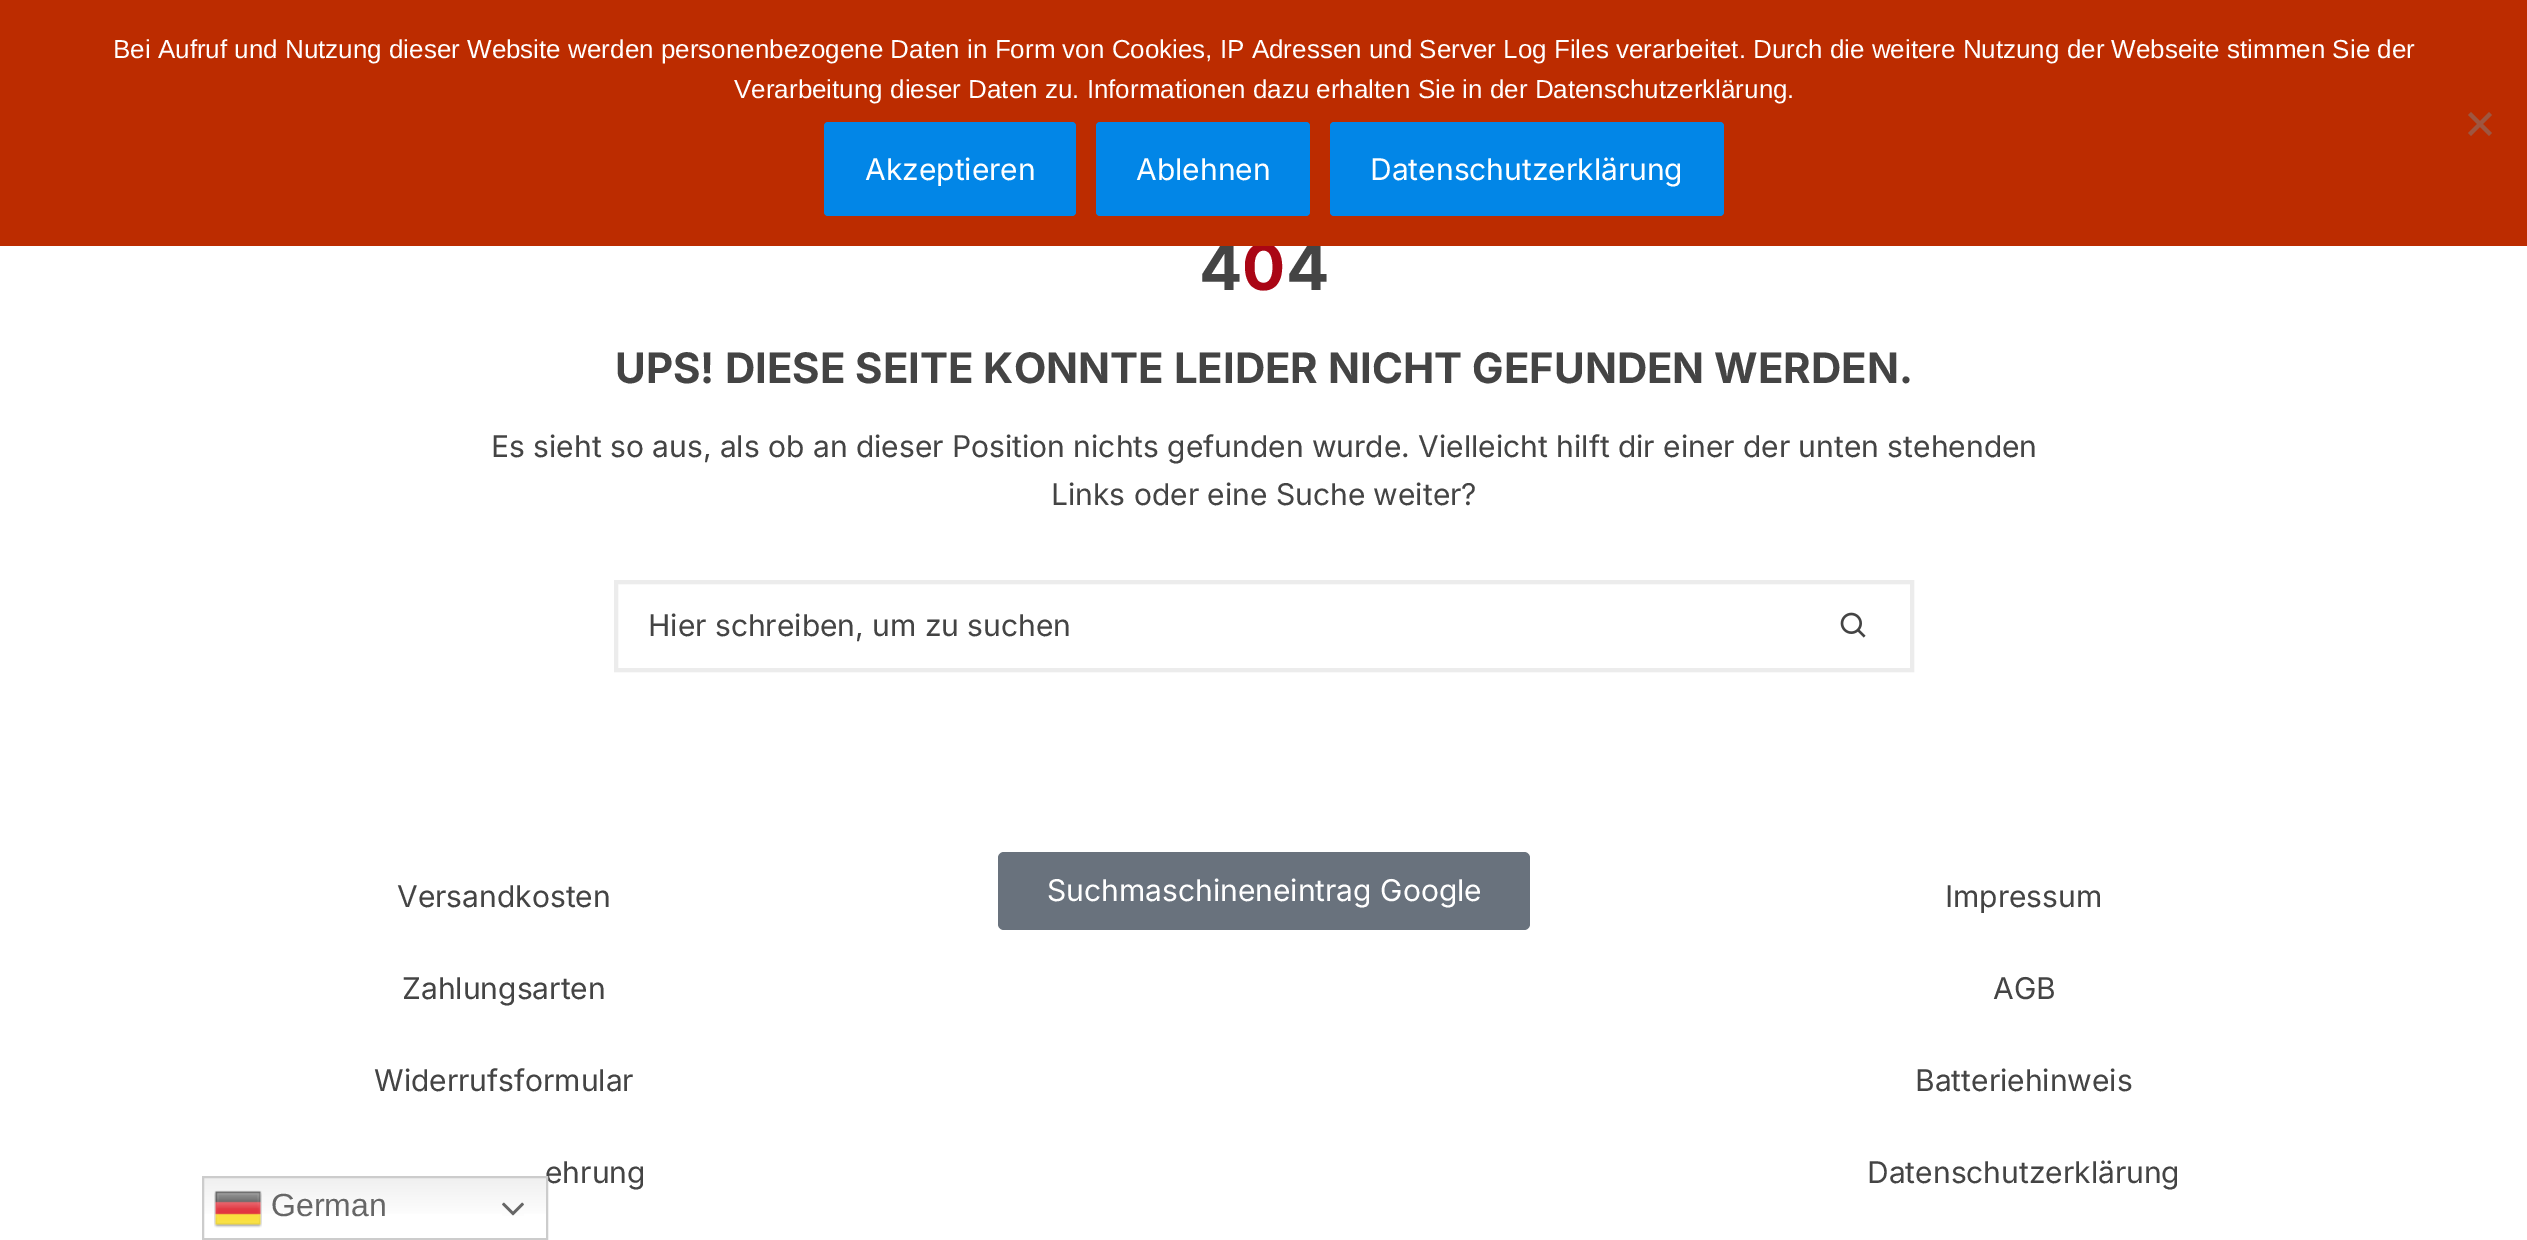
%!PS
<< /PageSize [2527 1240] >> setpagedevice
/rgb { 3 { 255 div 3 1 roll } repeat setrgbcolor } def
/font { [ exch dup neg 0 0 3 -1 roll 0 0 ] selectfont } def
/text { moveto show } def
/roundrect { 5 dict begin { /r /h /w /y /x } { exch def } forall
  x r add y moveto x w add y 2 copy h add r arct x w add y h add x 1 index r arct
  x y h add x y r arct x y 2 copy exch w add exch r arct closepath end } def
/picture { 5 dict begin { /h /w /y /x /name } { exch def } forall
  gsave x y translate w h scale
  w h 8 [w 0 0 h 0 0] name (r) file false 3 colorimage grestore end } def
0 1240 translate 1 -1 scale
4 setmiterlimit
255 255 255 rgb
0 0 2527 1240 rectfill
236 236 236 rgb
4 setlinewidth
616 582 1296 88 rectstroke
(img_01.rgb) 1840 612 26 26 picture
105 114 125 rgb
998 852 532 78 6 roundrect fill
gsave 204 1178 moveto 342 0 rlineto 0 36 rlineto -342 0 rlineto closepath clip newpath
<< /ShadingType 2 /ColorSpace /DeviceRGB /Coords [375 1176 375 1240] /Extend [true true] /Function << /FunctionType 3 /Domain [0 1] /Functions [<< /FunctionType 2 /Domain [0 1] /C0 [0.937 0.937 0.937] /C1 [1 1 1] /N 1 >> << /FunctionType 2 /Domain [0 1] /C0 [1 1 1] /C1 [1 1 1] /N 1 >>] /Bounds [0.7] /Encode [0 1 0 1] >> >> shfill grestore
/Inter-Bold 64 font
68 68 68 rgb
(4) 1199 290 text
170 6 21 rgb
(0) 1242 290 text
68 68 68 rgb
(4) 1286 290 text
188 44 0 rgb
0 0 2527 246 rectfill
158 86 64 rgb
2489 112 moveto 3 3 rlineto -21 21 rlineto -3 -3 rlineto closepath fill
2468 115 moveto 3 -3 rlineto 21 21 rlineto -3 3 rlineto closepath fill
2 134 231 rgb
1330 122 394 94 4 roundrect fill
/Inter-Regular 30 font
255 255 255 rgb
(Datenschutzerklärung) 1370 180 text
2 134 231 rgb
1096 122 214 94 4 roundrect fill
255 255 255 rgb
(Ablehnen) 1136 180 text
2 134 231 rgb
824 122 252 94 4 roundrect fill
255 255 255 rgb
(Akzeptieren) 865 180 text
/LiberationSans-Regular 26 font
(Verarbeitung dieser Daten zu. Informationen dazu erhalten Sie in der Datenschutzerklärung.) 734 98 text
(Bei Aufruf und Nutzung dieser Website werden personenbezogene Daten in Form von Cookies, IP Adressen und Server Log Files verarbeitet. Durch die weitere Nutzung der Webseite stimmen Sie der) 113 58 text
/Inter-Bold 42 font
68 68 68 rgb
(UPS! DIESE SEITE KONNTE LEIDER NICHT GEFUNDEN WERDEN.) 615 383 text
/Inter-Regular 30 font
(Es sieht so aus, als ob an dieser Position nichts gefunden wurde. Vielleicht hilft dir einer der unten stehenden) 491 457 text
(Links oder eine Suche weiter?) 1051 505 text
(Hier schreiben, um zu suchen) 648 636 text
(Versandkosten) 397 907 text
(Zahlungsarten) 402 999 text
(Widerrufsformular) 374 1091 text
(ehrung) 545 1183 text
255 255 255 rgb
(Suchmaschineneintrag Google) 1047 901 text
68 68 68 rgb
(Impressum) 1945 907 text
(AGB) 1993 999 text
(Batteriehinweis) 1915 1091 text
(Datenschutzerklärung) 1867 1183 text
204 204 204 rgb
2 setlinewidth
203 1177 344 62 rectstroke
(img_02.rgb) 214 1190 48 38 picture
/LiberationSans-Regular 32 font
102 102 102 rgb
(German) 271 1216 text
(img_03.rgb) 502 1202 22 14 picture
showpage
